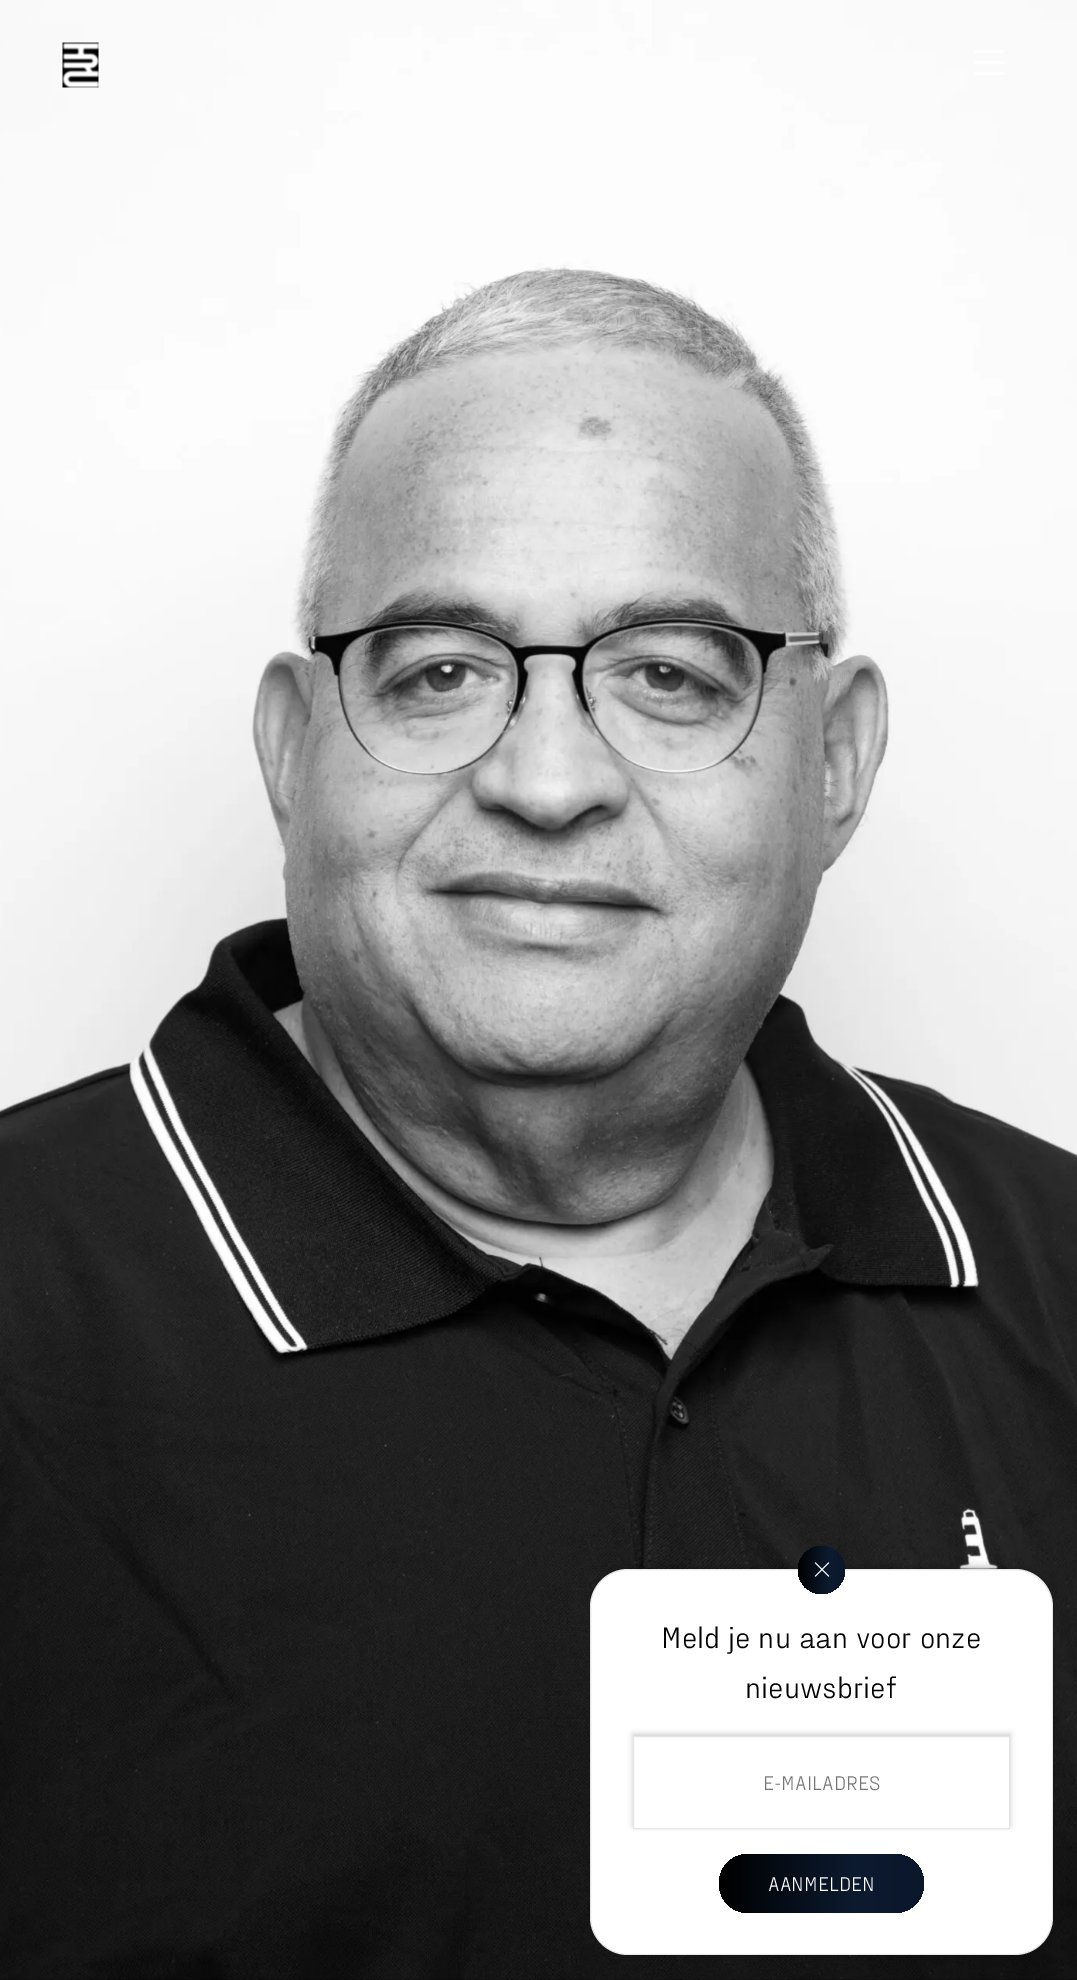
%!PS
<< /PageSize [1077 1980] /PageUsesTransparency true >> setpagedevice
/rgb { 3 { 255 div 3 1 roll } repeat setrgbcolor } def
/font { [ exch dup neg 0 0 3 -1 roll 0 0 ] selectfont } def
/text { moveto show } def
/alpha { dup .setfillconstantalpha .setstrokeconstantalpha } def
/roundrect { 5 dict begin { /r /h /w /y /x } { exch def } forall
  x r add y moveto x w add y 2 copy h add r arct x w add y h add x 1 index r arct
  x y h add x y r arct x y 2 copy exch w add exch r arct closepath end } def
/shadow { 12 dict begin { /a /b /q /h /w /y /x } { exch def } forall gsave /was 0 def
  9 -2 -9 { dup b mul 4 div /e exch def 1 sub .425 mul 2.718 exch exp 1 add a .99 .min exch div /now exch def
    1 1 now sub 1 was sub div sub alpha /was now def
    w h .min e 2 mul add 0 gt { x e sub y e sub w e 2 mul add h e 2 mul add
      q e add b .6 mul add w h .min 2 div e add .min 0 .max roundrect fill } if } for grestore end } def
/picture { 5 dict begin { /h /w /y /x /name } { exch def } forall
  gsave x y translate w h scale
  w h 8 [w 0 0 h 0 0] name (r) file false 3 colorimage grestore end } def
0 .pushpdf14devicefilter
0 1980 translate 1 -1 scale
4 setmiterlimit
255 255 255 rgb
0 0 1077 1980 rectfill
(img_01.rgb) 0 0 1077 1980 picture
(img_02.rgb) 62 42 37 46 picture
(img_03.rgb) 974 50 30 25 picture
0 0 0 rgb
590 1566 463 387 38 3 0.2 shadow
255 255 255 rgb
590 1569 463 386 38 roundrect fill
0.1 alpha
0 0 0 rgb
590.5 1569.5 462 385 37.5 roundrect stroke
1 alpha
gsave 798 1546 47 48 23.5 roundrect clip newpath
<< /ShadingType 2 /ColorSpace /DeviceRGB /Coords [798 1570 845 1570] /Extend [true true] /Function << /FunctionType 3 /Domain [0 1] /Functions [<< /FunctionType 2 /Domain [0 1] /C0 [0 0 0] /C1 [0.047 0.102 0.184] /N 1 >> << /FunctionType 2 /Domain [0 1] /C0 [0.047 0.102 0.184] /C1 [0.043 0.09 0.169] /N 1 >>] /Bounds [0.65] /Encode [0 1 0 1] >> >> shfill grestore
255 255 255 rgb
2 setlinecap
828.5 1563 moveto -13 13 rlineto 815.5 1563 moveto 13 13 rlineto stroke
0 0 0 rgb
633 1734 377 92 0 3 0.2 shadow
255 255 255 rgb
633.5 1736.5 moveto 376 0 rlineto 0 92 rlineto -376 0 rlineto closepath gsave fill grestore
230 230 230 rgb
0 setlinecap
stroke
gsave 719 1854 205 59 29.5 roundrect clip newpath
<< /ShadingType 2 /ColorSpace /DeviceRGB /Coords [719 1883 924 1883] /Extend [true true] /Function << /FunctionType 3 /Domain [0 1] /Functions [<< /FunctionType 2 /Domain [0 1] /C0 [0 0 0] /C1 [0.047 0.102 0.184] /N 1 >> << /FunctionType 2 /Domain [0 1] /C0 [0.047 0.102 0.184] /C1 [0.043 0.09 0.169] /N 1 >>] /Bounds [0.65] /Encode [0 1 0 1] >> >> shfill grestore
/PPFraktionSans-Light 30 font
0 0 0 rgb
(Meld je nu aan voor onze) 661 1648 text
(nieuwsbrief) 745 1698 text
/PPFraktionSans-Light 20 font
117 117 117 rgb
(E-MAILADRES) 763 1790 text
255 255 255 rgb
(AANMELDEN) 768 1891 text
.poppdf14devicefilter showpage
